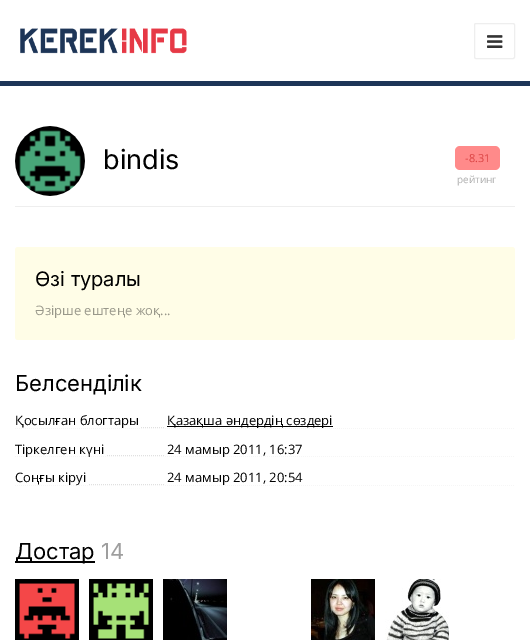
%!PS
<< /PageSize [530 640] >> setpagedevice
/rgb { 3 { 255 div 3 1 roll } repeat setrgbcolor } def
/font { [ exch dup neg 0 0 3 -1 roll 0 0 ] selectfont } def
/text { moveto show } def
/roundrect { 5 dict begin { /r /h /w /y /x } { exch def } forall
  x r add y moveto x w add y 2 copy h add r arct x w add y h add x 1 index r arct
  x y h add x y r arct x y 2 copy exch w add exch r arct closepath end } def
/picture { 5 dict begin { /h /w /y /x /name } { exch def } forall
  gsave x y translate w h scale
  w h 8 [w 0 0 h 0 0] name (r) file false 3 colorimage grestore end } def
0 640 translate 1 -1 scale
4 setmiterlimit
255 255 255 rgb
0 0 530 640 rectfill
29 53 87 rgb
0 81 530 5 rectfill
(img_01.rgb) 20 28 167 26 picture
238 238 238 rgb
474.5 23.5 40 35 1.5 roundrect stroke
(img_02.rgb) 487 35 16 13 picture
(img_03.rgb) 15 126 70 70 picture
255 138 138 rgb
455 146 45 24 5 roundrect fill
238 238 238 rgb
15 206 500 1 rectfill
255 253 231 rgb
15 247 500 93 3 roundrect fill
224 224 224 rgb
[1 1] 0 setdash
15 427.5 moveto 500 0 rlineto stroke
255 255 255 rgb
15 427 125 1 rectfill
165 427 349 1 rectfill
0 0 0 rgb
167 426 166 1 rectfill
224 224 224 rgb
15 455.5 moveto 500 0 rlineto stroke
255 255 255 rgb
15 455 91 1 rectfill
165 455 349 1 rectfill
224 224 224 rgb
15 484.5 moveto 500 0 rlineto stroke
255 255 255 rgb
15 484 73 1 rectfill
165 484 349 1 rectfill
0 0 0 rgb
15 561 80 2 rectfill
(img_04.rgb) 15 579 64 61 picture
(img_05.rgb) 89 579 64 61 picture
(img_06.rgb) 163 579 64 61 picture
(img_07.rgb) 311 579 64 61 picture
(img_08.rgb) 385 579 64 61 picture
/Inter-Regular 27 font
(bindis) 103 169 text
/OpenSans-Regular 11 font
218 66 66 rgb
(-8.31) 465 162 text
/OpenSans-Regular 10 font
173 173 173 rgb
(рейтинг) 457 183 text
/Inter-Regular 20 font
0 0 0 rgb
(Өзі туралы) 35 286 text
/OpenSans-Regular 13 font
153 152 139 rgb
(Әзірше ештеңе жоқ...) 35 315 text
/Inter-Regular 22 font
0 0 0 rgb
(Белсенділік) 15 391 text
/OpenSans-Regular 13 font
(Қосылған блогтары) 15 425 text
(Қазақша әндердің сөздері) 167 425 text
(Тіркелген күні) 15 454 text
(24 мамыр 2011, 16:37) 167 454 text
(Соңғы кіруі) 15 482 text
(24 мамыр 2011, 20:54) 167 482 text
/Inter-Regular 22 font
(Достар) 15 559 text
158 158 158 rgb
(14) 101 559 text
showpage
